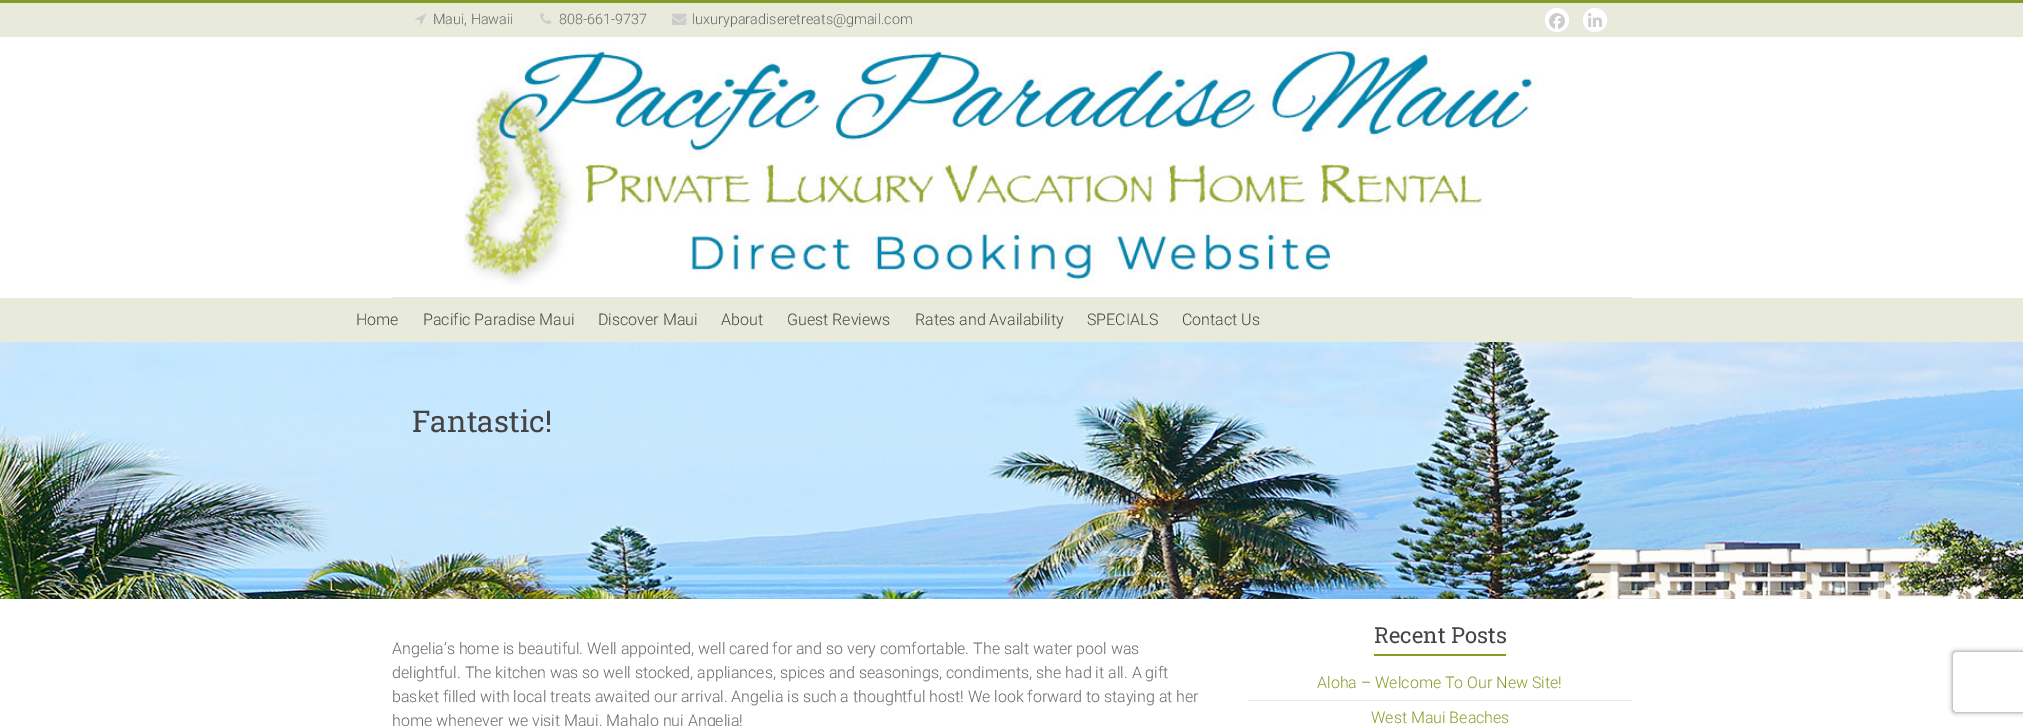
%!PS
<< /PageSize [2023 726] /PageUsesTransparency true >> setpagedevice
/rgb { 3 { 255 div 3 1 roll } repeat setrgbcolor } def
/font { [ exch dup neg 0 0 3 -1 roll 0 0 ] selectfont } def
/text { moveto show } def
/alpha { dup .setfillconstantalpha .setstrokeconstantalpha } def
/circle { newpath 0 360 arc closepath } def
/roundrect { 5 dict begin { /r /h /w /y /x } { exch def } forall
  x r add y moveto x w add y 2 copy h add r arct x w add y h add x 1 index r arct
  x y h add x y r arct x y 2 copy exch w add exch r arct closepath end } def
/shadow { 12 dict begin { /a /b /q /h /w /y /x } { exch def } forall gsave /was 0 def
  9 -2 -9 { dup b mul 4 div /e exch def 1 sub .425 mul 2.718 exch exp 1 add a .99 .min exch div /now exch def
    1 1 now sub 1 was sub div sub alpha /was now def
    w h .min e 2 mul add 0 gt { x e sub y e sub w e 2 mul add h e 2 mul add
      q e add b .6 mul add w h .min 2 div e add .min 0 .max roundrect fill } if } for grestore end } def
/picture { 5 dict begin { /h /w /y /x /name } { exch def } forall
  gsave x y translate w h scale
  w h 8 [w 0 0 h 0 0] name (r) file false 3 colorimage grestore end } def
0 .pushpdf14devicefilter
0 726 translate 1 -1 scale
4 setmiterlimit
255 255 255 rgb
0 0 2023 726 rectfill
130 157 36 rgb
0 0 2023 3 rectfill
232 234 219 rgb
0 3 2023 34 rectfill
(img_01.rgb) 415 13 12 12 picture
(img_02.rgb) 540 12 12 12 picture
(img_03.rgb) 672 13 15 12 picture
255 255 255 rgb
1557 20 12 circle fill
(img_04.rgb) 1549 13 16 16 picture
1595 20 12 circle fill
(img_05.rgb) 1588 13 14 14 picture
(img_06.rgb) 464 47 1073 238 picture
234 234 234 rgb
392 297 1240 1 rectfill
232 234 219 rgb
0 298 2023 44 rectfill
(img_07.rgb) 0 342 2023 257 picture
130 157 36 rgb
1374 654 132 2 rectfill
234 234 234 rgb
1248 700 384 1 rectfill
gsave
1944 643 moveto 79 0 rlineto 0 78 rlineto -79 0 rlineto closepath 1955 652 moveto 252 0 rlineto 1 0 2 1 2 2 rcurveto 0 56 rlineto 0 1 -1 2 -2 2 rcurveto -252 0 rlineto -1 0 -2 -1 -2 -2 rcurveto 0 -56 rlineto 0 -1 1 -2 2 -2 rcurveto closepath eoclip newpath
128 128 128 rgb
1953 652 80 60 2 2.5 1 shadow
grestore
/Roboto-Light 14.4 font
102 102 102 rgb
(Maui, Hawaii) 433 24 text
(808-661-9737) 559 24 text
(luxuryparadiseretreats@gmail.com) 692 24 text
/Roboto-Light 16 font
68 68 68 rgb
(Home) 356 325 text
(Pacific Paradise Maui) 423 325 text
(Discover Maui) 598 325 text
(About) 721 325 text
(Guest Reviews) 787 325 text
(Rates and Availability) 915 325 text
(SPECIALS) 1087 325 text
(Contact Us) 1182 325 text
/RobotoSlab-Regular 30 font
(Fantastic!) 412 432 text
/Roboto-Light 16 font
102 102 102 rgb
(Angelia’s home is beautiful. Well appointed, well cared for and so very comfortable. The salt water pool was) 392 654 text
(delightful. The kitchen was so well stocked, appliances, spices and seasonings, condiments, she had it all. A gift) 392 678 text
(basket filled with local treats awaited our arrival. Angelia is such a thoughtful host! We look forward to staying at her) 392 702 text
(home whenever we visit Maui. Mahalo nui Angelia!) 392 726 text
/RobotoSlab-Regular 22 font
68 68 68 rgb
(Recent Posts) 1374 643 text
/Roboto-Light 16 font
130 157 36 rgb
(Aloha – Welcome To Our New Site!) 1317 688 text
(West Maui Beaches) 1371 723 text
.poppdf14devicefilter showpage
